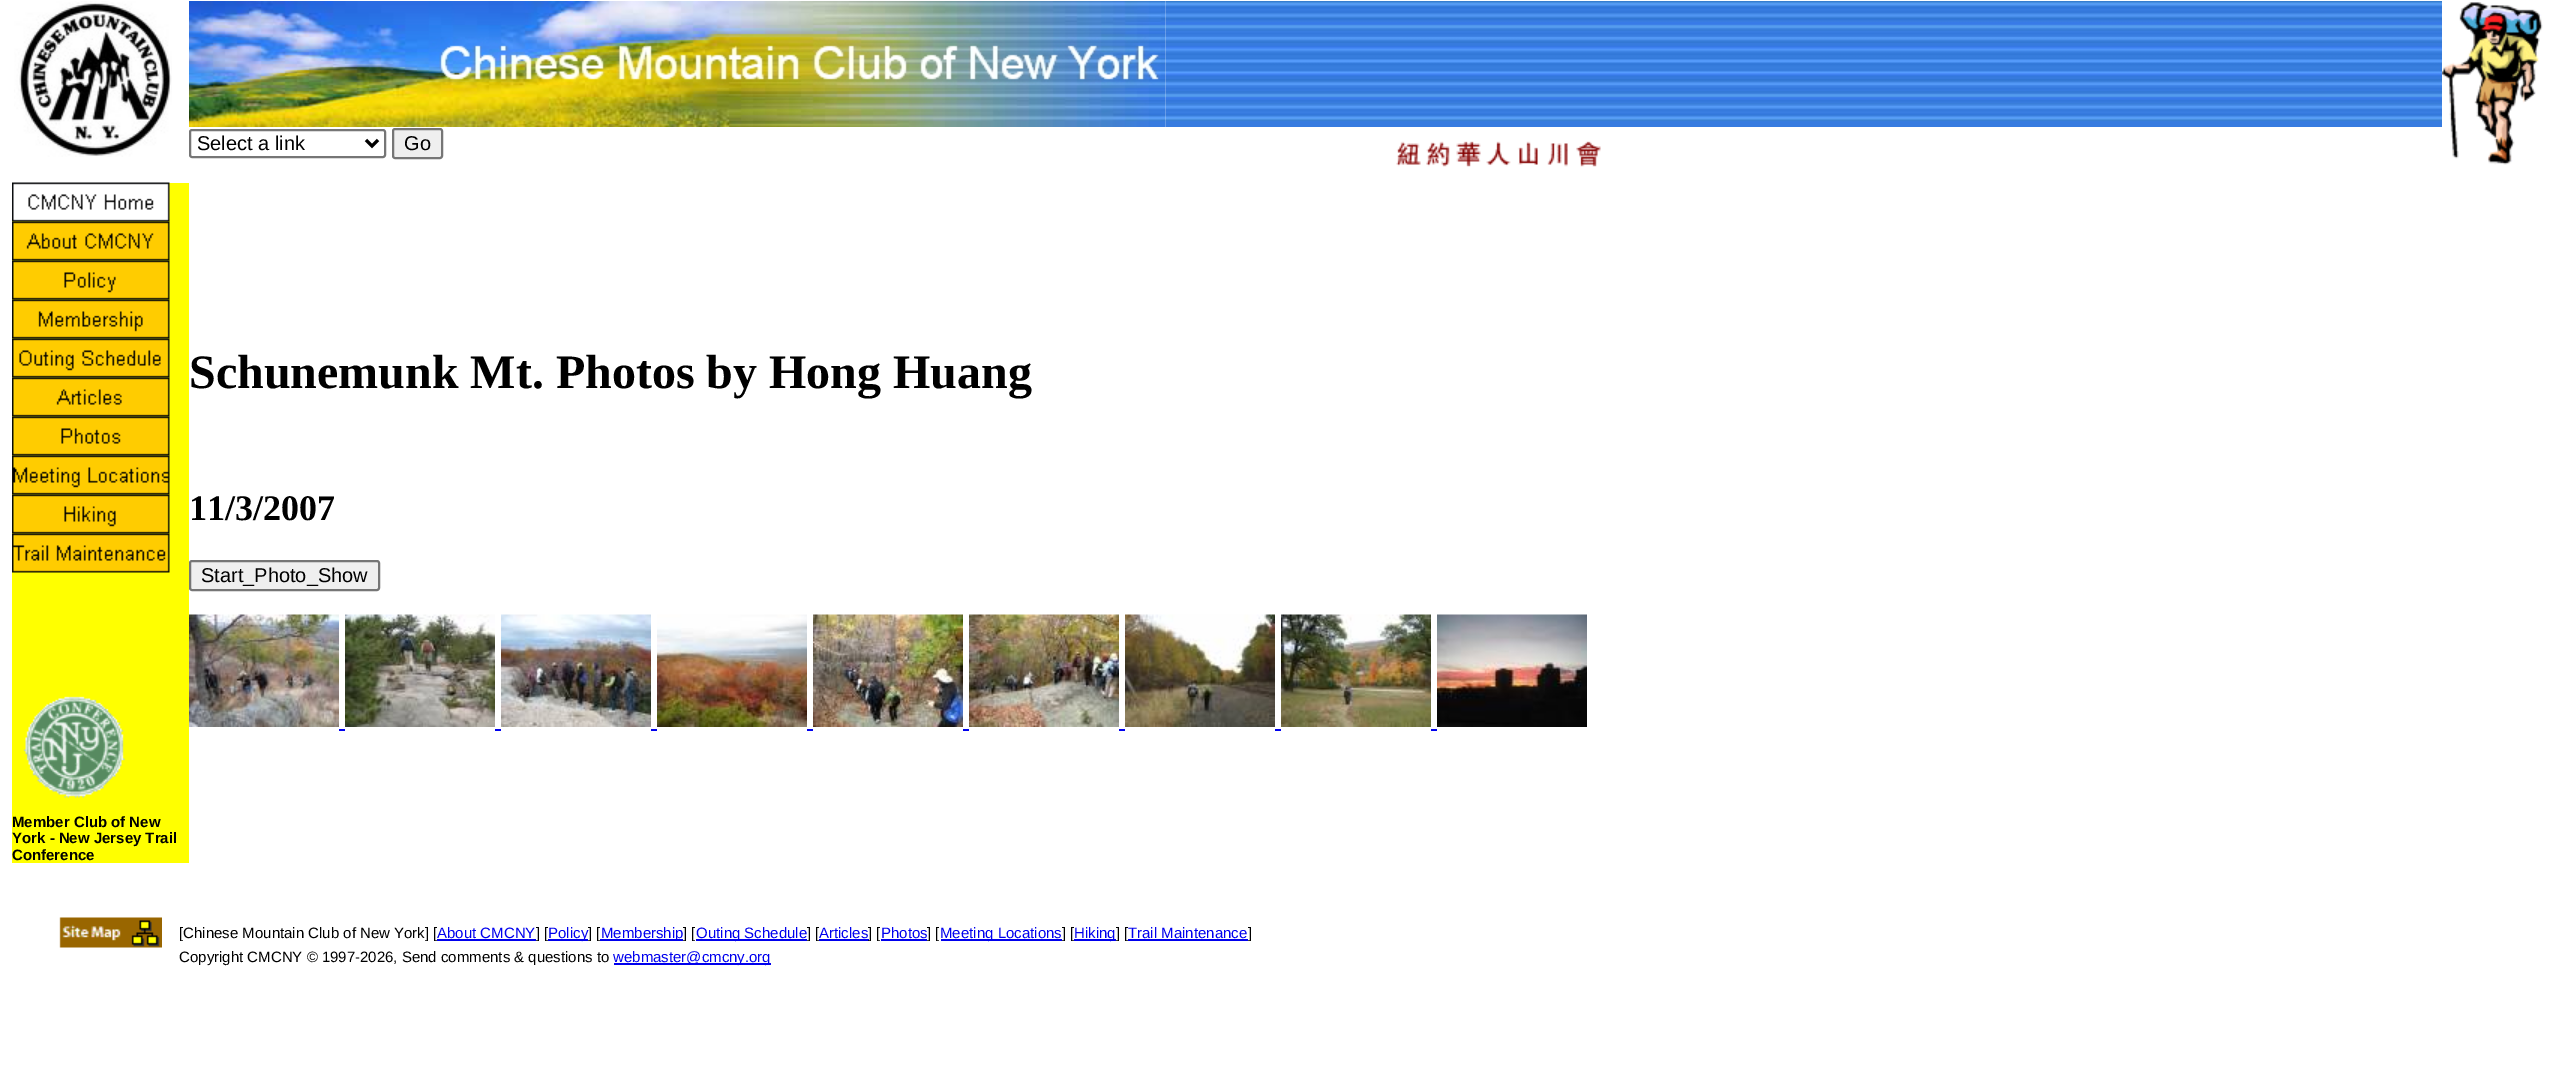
%!PS
<< /PageSize [2554 1082] >> setpagedevice
/rgb { 3 { 255 div 3 1 roll } repeat setrgbcolor } def
/font { [ exch dup neg 0 0 3 -1 roll 0 0 ] selectfont } def
/text { moveto show } def
/roundrect { 5 dict begin { /r /h /w /y /x } { exch def } forall
  x r add y moveto x w add y 2 copy h add r arct x w add y h add x 1 index r arct
  x y h add x y r arct x y 2 copy exch w add exch r arct closepath end } def
/picture { 5 dict begin { /h /w /y /x /name } { exch def } forall
  gsave x y translate w h scale
  w h 8 [w 0 0 h 0 0] name (r) file false 3 colorimage grestore end } def
0 1082 translate 1 -1 scale
4 setmiterlimit
255 255 255 rgb
0 0 2554 1082 rectfill
(img_01.rgb) 14 1 158 156 picture
(img_03.rgb) 1165 1 1277 126 picture
(img_02.rgb) 189 1 977 126 picture
118 118 118 rgb
2 setlinewidth
190 130 195 27 2 roundrect stroke
0 0 0 rgb
3 setlinewidth
366 140 moveto 6 6 rlineto 6 -6 rlineto stroke
239 239 239 rgb
393 129 49 29 2 roundrect gsave fill grestore
118 118 118 rgb
2 setlinewidth
stroke
(img_04.rgb) 1396 141 205 26 picture
(img_05.rgb) 2442 2 101 163 picture
239 239 239 rgb
190 561 189 29 2 roundrect gsave fill grestore
118 118 118 rgb
stroke
(img_06.rgb) 189 614 150 113 picture
(img_07.rgb) 345 614 150 113 picture
(img_08.rgb) 501 614 150 113 picture
(img_09.rgb) 657 614 150 113 picture
(img_10.rgb) 813 614 150 113 picture
(img_11.rgb) 969 614 150 113 picture
(img_12.rgb) 1125 614 150 113 picture
(img_13.rgb) 1281 614 150 113 picture
(img_14.rgb) 1437 614 150 113 picture
0 0 238 rgb
339 729 6 2 rectfill
495 729 6 2 rectfill
651 729 6 2 rectfill
807 729 6 2 rectfill
963 729 6 2 rectfill
1119 729 6 2 rectfill
1275 729 6 2 rectfill
1431 729 6 2 rectfill
255 255 0 rgb
12 183 177 680 rectfill
(img_15.rgb) 12 182 158 40 picture
(img_16.rgb) 12 221 158 40 picture
(img_17.rgb) 12 260 158 40 picture
(img_18.rgb) 12 299 158 40 picture
(img_19.rgb) 12 338 158 40 picture
(img_20.rgb) 12 377 158 40 picture
(img_21.rgb) 12 416 158 40 picture
(img_22.rgb) 12 455 158 40 picture
(img_23.rgb) 12 494 158 40 picture
(img_24.rgb) 12 533 158 40 picture
(img_25.rgb) 23 696 102 102 picture
(img_26.rgb) 59 917 103 31 picture
0 0 238 rgb
548 939 40 2 rectfill
696 939 111 2 rectfill
819 939 50 2 rectfill
881 939 46 2 rectfill
941 939 121 2 rectfill
614 963 157 2 rectfill
/LiberationSans-Regular 20 font
0 0 0 rgb
(Select a link) 197 150 text
(Go) 404 150 text
/LiberationSerif-Bold 48 font
(Schunemunk Mt. Photos by Hong Huang) 189 388 text
/LiberationSerif-Bold 36 font
(11/3/2007) 189 520 text
/LiberationSans-Regular 20 font
(Start_Photo_Show) 201 582 text
/LiberationSans-Bold 15 font
(Member Club of New) 12 827 text
(York - New Jersey Trail) 12 843 text
(Conference) 12 860 text
/LiberationSans-Regular 15 font
([Chinese Mountain Club of New York] [) 179 938 text
0 0 238 rgb
(About CMCNY) 437 938 text
437 939 99 2 rectfill
0 0 0 rgb
(] [) 536 938 text
0 0 238 rgb
(Policy) 548 938 text
0 0 0 rgb
(] [) 588 938 text
0 0 238 rgb
600 939 83 2 rectfill
(Membership) 601 938 text
0 0 0 rgb
(] [) 683 938 text
0 0 238 rgb
(Outing Schedule) 696 938 text
0 0 0 rgb
(] [) 807 938 text
0 0 238 rgb
(Articles) 819 938 text
0 0 0 rgb
(] [) 868 938 text
0 0 238 rgb
(Photos) 881 938 text
0 0 0 rgb
(] [) 927 938 text
0 0 238 rgb
(Meeting Locations) 940 938 text
0 0 0 rgb
(] [) 1062 938 text
0 0 238 rgb
1074 939 42 2 rectfill
(Hiking) 1074 938 text
0 0 0 rgb
(] [) 1116 938 text
0 0 238 rgb
(Trail Maintenance) 1128 938 text
1128 939 120 2 rectfill
0 0 0 rgb
(]) 1248 938 text
(Copyright CMCNY © 1997-2026, Send comments & questions to) 179 962 text
0 0 238 rgb
(webmaster@cmcny.org) 613 962 text
showpage
